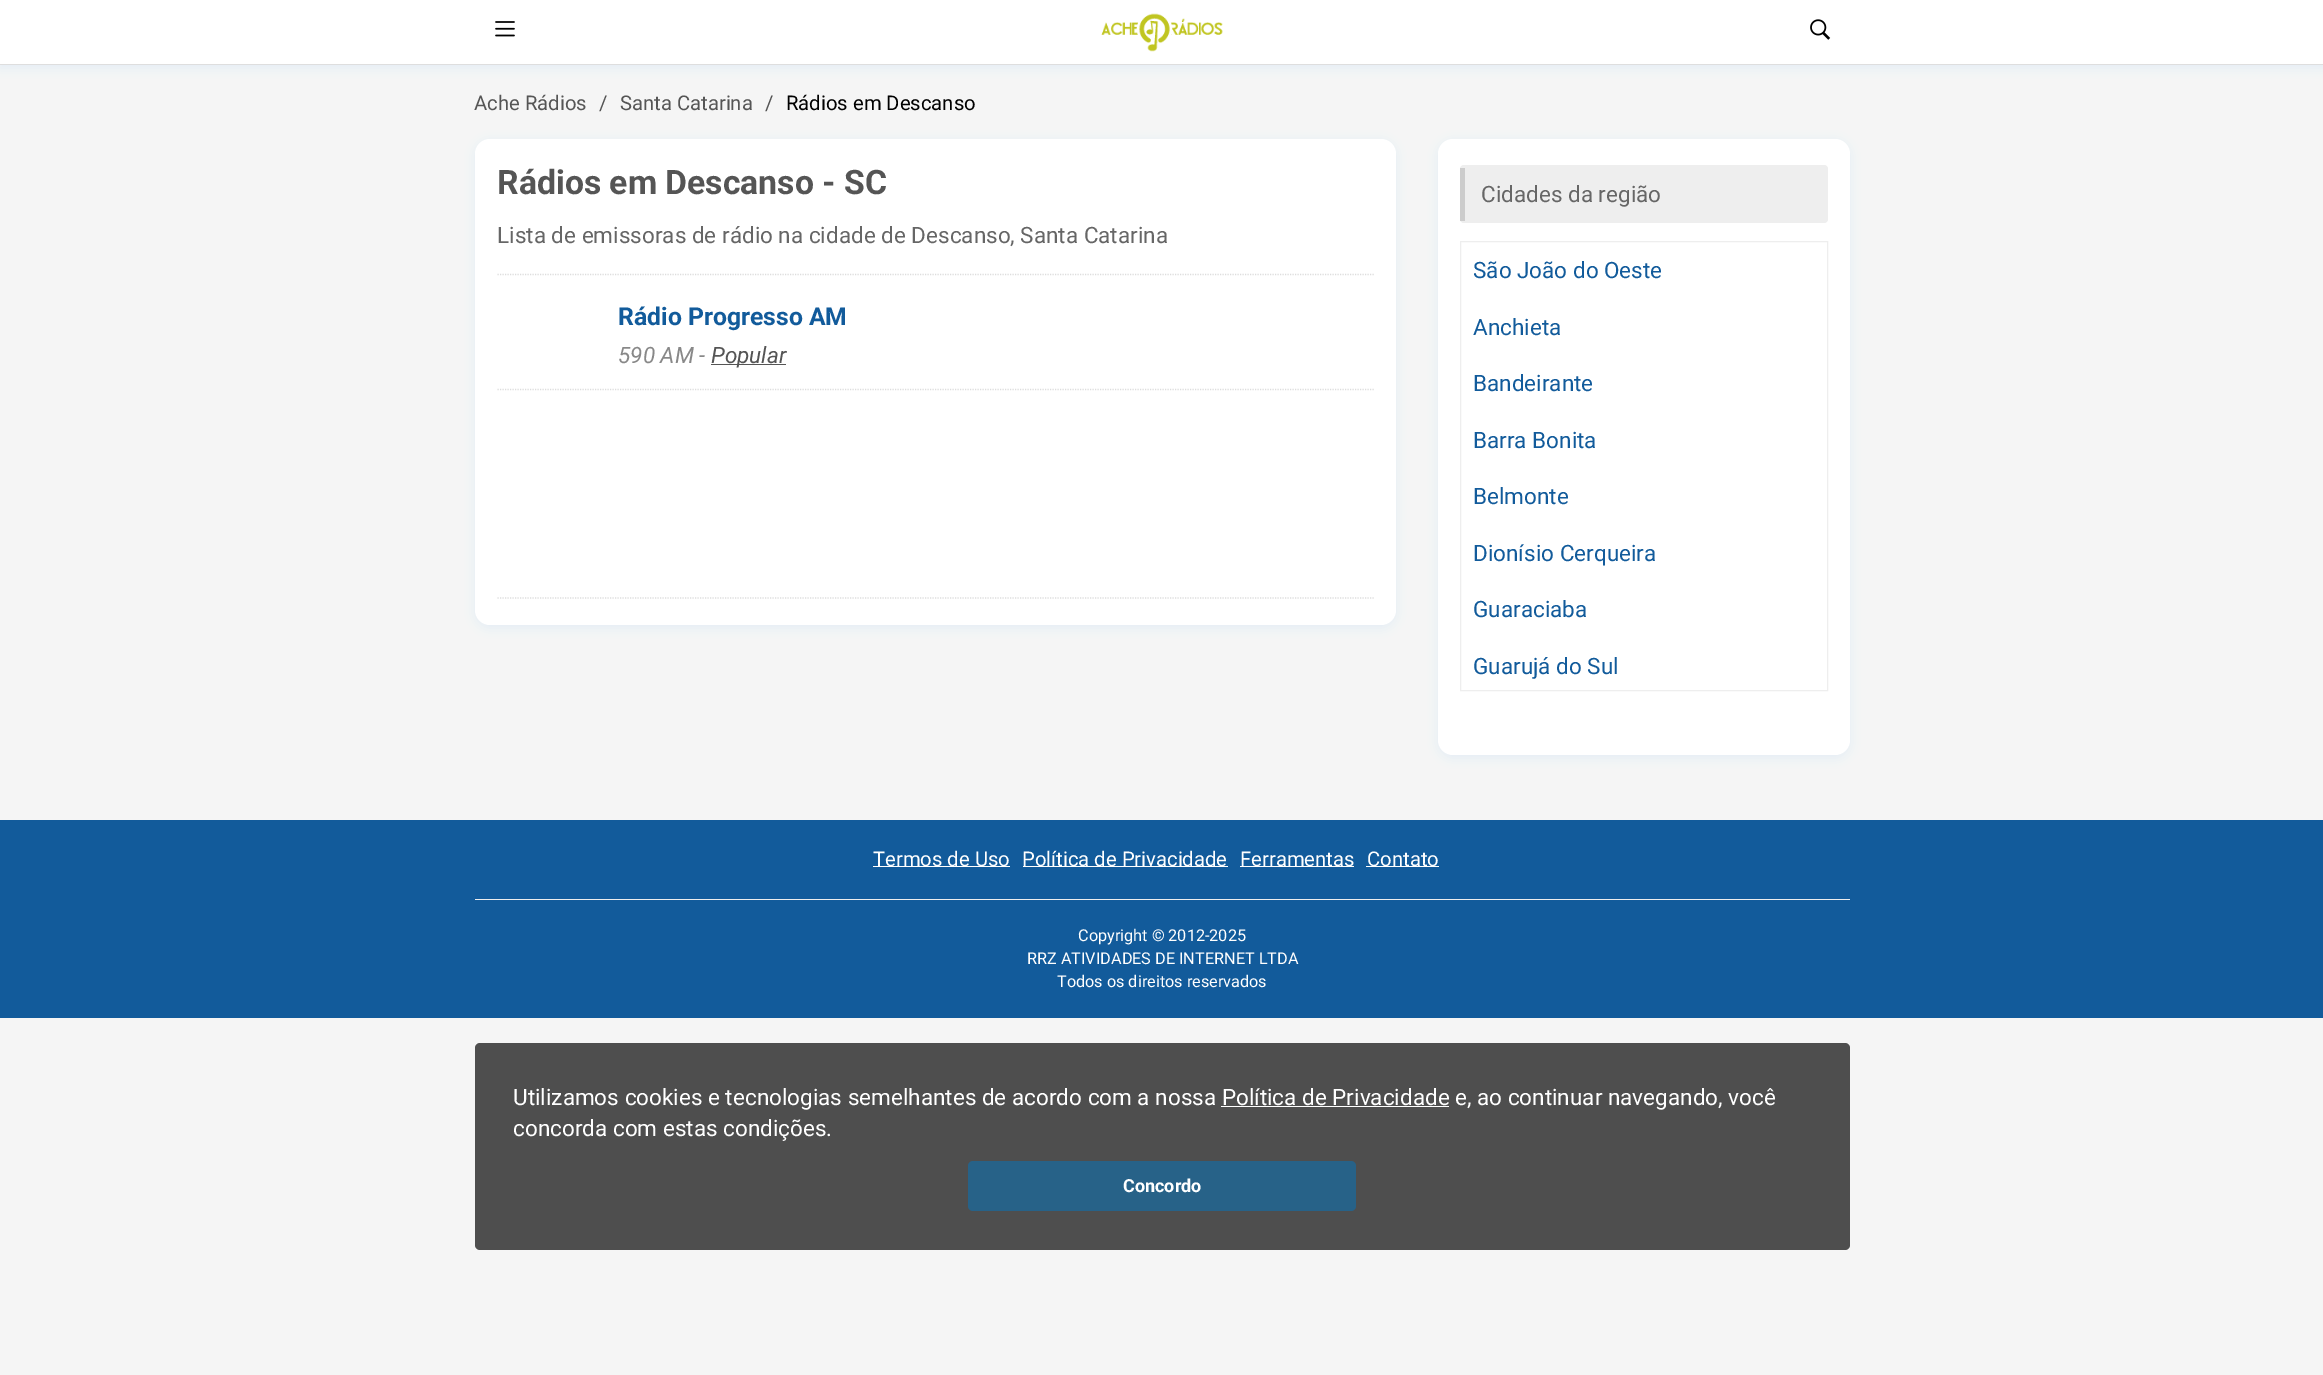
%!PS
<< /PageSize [2323 1375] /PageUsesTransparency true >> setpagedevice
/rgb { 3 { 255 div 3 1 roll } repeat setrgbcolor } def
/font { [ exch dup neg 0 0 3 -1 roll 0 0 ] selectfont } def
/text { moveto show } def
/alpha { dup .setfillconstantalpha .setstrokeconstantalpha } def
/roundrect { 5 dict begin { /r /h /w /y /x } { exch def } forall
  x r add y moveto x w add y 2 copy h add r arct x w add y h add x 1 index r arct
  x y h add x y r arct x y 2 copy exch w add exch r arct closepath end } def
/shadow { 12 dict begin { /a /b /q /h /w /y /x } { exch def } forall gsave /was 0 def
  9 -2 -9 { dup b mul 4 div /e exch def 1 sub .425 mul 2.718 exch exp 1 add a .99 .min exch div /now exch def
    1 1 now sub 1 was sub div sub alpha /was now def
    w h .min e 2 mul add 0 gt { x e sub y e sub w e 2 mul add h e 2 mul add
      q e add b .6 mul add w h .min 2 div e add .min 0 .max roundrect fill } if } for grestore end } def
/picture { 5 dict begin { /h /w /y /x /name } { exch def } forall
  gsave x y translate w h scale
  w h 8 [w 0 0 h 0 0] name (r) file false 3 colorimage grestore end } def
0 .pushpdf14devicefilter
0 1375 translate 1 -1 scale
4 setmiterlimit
245 245 245 rgb
0 0 2323 1375 rectfill
30 136 229 rgb
0 3 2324 65 0 5 0.08 shadow
255 255 255 rgb
0 0 2323 64 rectfill
222 222 222 rgb
0 64 2323 1 rectfill
(img_01.rgb) 495 21 20 16 picture
(img_02.rgb) 1101 13 122 39 picture
(img_03.rgb) 1810 19 21 21 picture
30 136 229 rgb
475 141 921 487 15 5 0.08 shadow
255 255 255 rgb
475 139 921 486 15 roundrect fill
221 221 221 rgb
1.2 setlinewidth
[1.25 1.25] 0 setdash
497.5 274.5 moveto 876.5 0 rlineto stroke
497.5 389.5 moveto 876.5 0 rlineto stroke
85 85 85 rgb
711 364 75 1 rectfill
221 221 221 rgb
497.5 598 moveto 876.5 0 rlineto stroke
30 136 229 rgb
1438 141 412 617 15 5 0.08 shadow
255 255 255 rgb
1438 139 412 616 15 roundrect fill
238 238 238 rgb
1460 165 368 58 4 roundrect fill
204 204 204 rgb
1460 168 5 53 rectfill
238 238 238 rgb
1 setlinewidth
[] 0 setdash
1460.5 241.5 367 449 rectstroke
18 91 155 rgb
0 820 2323 198 rectfill
255 255 255 rgb
873 866 137 1 rectfill
1023 866 205 1 rectfill
1240 866 114 1 rectfill
1366 866 73 1 rectfill
238 238 238 rgb
475 899 1375 1 rectfill
78 78 78 rgb
475 1043 1375 207 5 roundrect fill
255 255 255 rgb
1221 1106 228 1 rectfill
39 98 136 rgb
968 1161 388 50 5 roundrect fill
/Roboto-Regular 20.25 font
85 85 85 rgb
(Ache Rádios) 474 110 text
(/) 599 110 text
(Santa Catarina) 620 110 text
(/) 765 110 text
0 0 0 rgb
(Rádios em Descanso) 786 110 text
/Roboto-Bold 33.75 font
85 85 85 rgb
(Rádios em Descanso - SC) 497 194 text
/Roboto-Regular 22.5 font
102 102 102 rgb
(Lista de emissoras de rádio na cidade de Descanso, Santa Catarina) 497 243 text
/Roboto-Bold 24.75 font
18 91 155 rgb
(Rádio Progresso AM) 618 325 text
/Roboto-Italic 22.5 font
136 136 136 rgb
(590 AM -) 618 363 text
85 85 85 rgb
(Popular) 711 363 text
/Roboto-Regular 22.5 font
102 102 102 rgb
(Cidades da região) 1481 202 text
18 91 155 rgb
(São João do Oeste) 1473 278 text
(Anchieta) 1473 335 text
(Bandeirante) 1473 391 text
(Barra Bonita) 1473 448 text
(Belmonte) 1473 504 text
(Dionísio Cerqueira) 1473 561 text
(Guaraciaba) 1473 617 text
(Guarujá do Sul) 1473 674 text
/Roboto-Regular 20.25 font
255 255 255 rgb
(Termos de Uso) 873 866 text
(Política de Privacidade) 1022 866 text
(Ferramentas) 1240 866 text
(Contato) 1367 866 text
/Roboto-Regular 16.25 font
(Copyright © 2012-2025) 1078 941 text
(RRZ ATIVIDADES DE INTERNET LTDA) 1027 964 text
(Todos os direitos reservados) 1057 987 text
/Roboto-Regular 22.5 font
(Utilizamos cookies e tecnologias semelhantes de acordo com a nossa Política de Privacidade e, ao continuar navegando, você) 513 1105 text
(concorda com estas condições.) 513 1136 text
/Roboto-Bold 18 font
(Concordo) 1123 1192 text
.poppdf14devicefilter showpage
